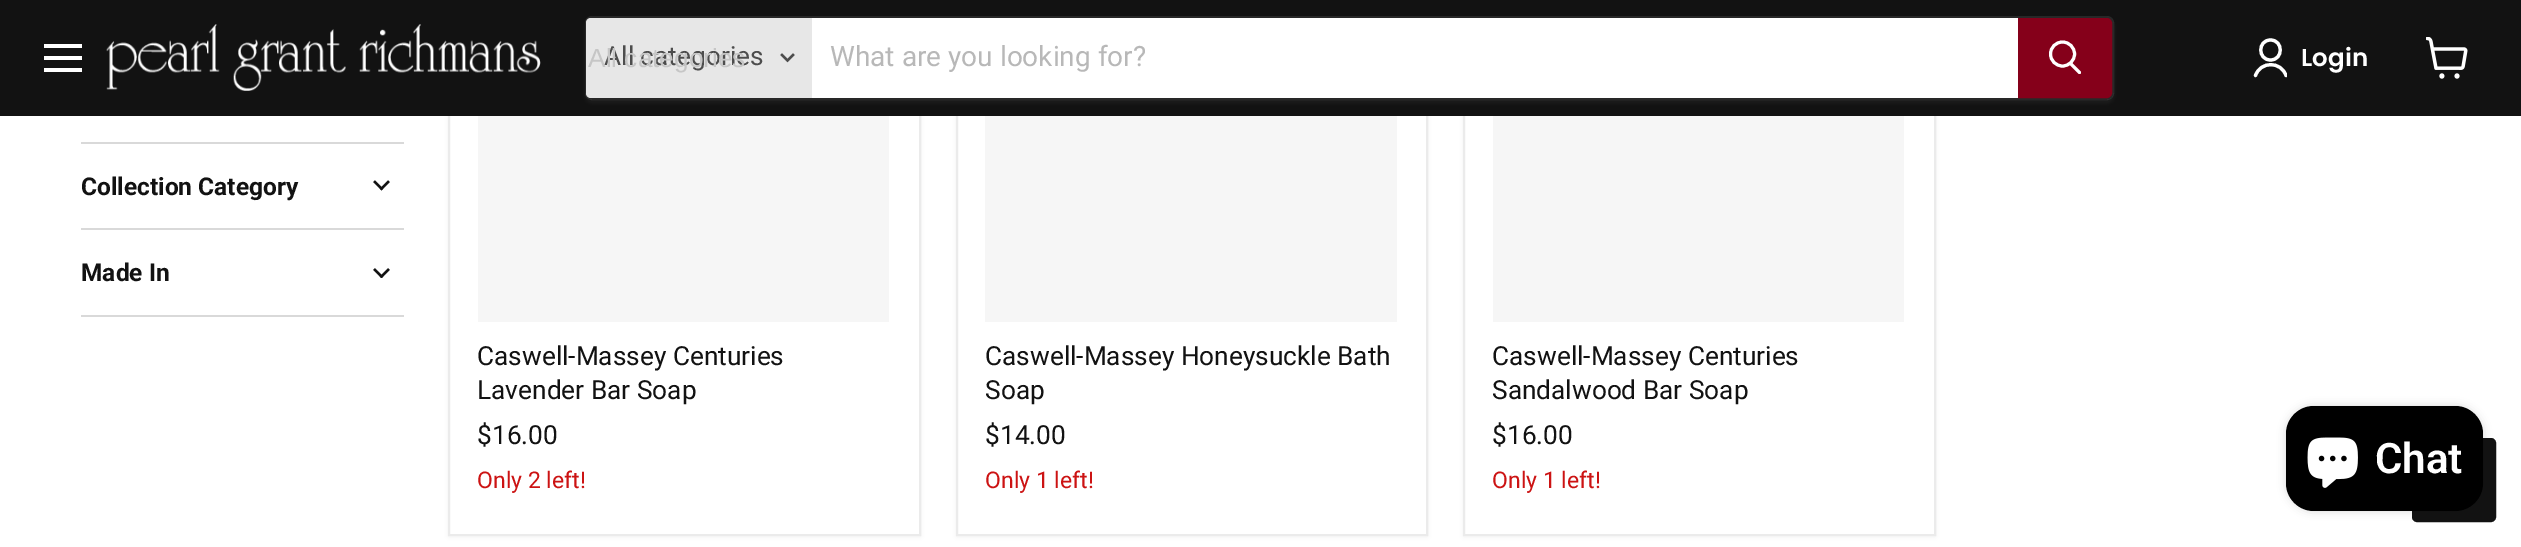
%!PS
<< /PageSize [2521 547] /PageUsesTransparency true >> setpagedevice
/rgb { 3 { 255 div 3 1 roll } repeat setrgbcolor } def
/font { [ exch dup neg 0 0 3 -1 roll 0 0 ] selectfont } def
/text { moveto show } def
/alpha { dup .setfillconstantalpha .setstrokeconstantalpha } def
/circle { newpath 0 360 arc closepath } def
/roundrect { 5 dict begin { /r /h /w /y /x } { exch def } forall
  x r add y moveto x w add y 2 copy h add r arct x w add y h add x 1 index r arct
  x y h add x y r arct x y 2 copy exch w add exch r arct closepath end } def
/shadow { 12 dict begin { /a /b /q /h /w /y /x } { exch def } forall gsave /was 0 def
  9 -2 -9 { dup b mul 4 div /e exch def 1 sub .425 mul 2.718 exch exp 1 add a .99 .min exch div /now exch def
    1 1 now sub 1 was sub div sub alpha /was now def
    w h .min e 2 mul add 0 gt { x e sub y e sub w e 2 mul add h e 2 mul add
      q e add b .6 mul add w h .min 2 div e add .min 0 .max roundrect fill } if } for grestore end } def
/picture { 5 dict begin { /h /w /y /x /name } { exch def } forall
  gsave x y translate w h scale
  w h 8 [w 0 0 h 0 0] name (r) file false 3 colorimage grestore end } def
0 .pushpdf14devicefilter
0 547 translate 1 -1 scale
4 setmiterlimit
255 255 255 rgb
0 0 2521 547 rectfill
128 128 128 rgb
448 -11 473 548 0 3.5 0.11 shadow
255 255 255 rgb
450 116 469 418 rectfill
235 235 235 rgb
2 setlinewidth
449 -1 471 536 rectstroke
128 128 128 rgb
956 -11 472 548 0 3.5 0.11 shadow
255 255 255 rgb
958 116 468 418 rectfill
235 235 235 rgb
957 -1 470 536 rectstroke
128 128 128 rgb
1463 -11 473 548 0 3.5 0.11 shadow
255 255 255 rgb
1465 116 469 418 rectfill
235 235 235 rgb
1464 -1 471 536 rectstroke
18 18 18 rgb
0 0 2521 116 rectfill
255 255 255 rgb
44 44 38 4 rectfill
44 56 38 4 rectfill
44 68 38 4 rectfill
(img_01.rgb) 106 24 435 67 picture
gsave
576 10 moveto 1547 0 rlineto 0 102 rlineto -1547 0 rlineto closepath 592 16 moveto 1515 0 rlineto 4 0 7 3 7 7 rcurveto 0 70 rlineto 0 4 -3 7 -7 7 rcurveto -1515 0 rlineto -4 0 -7 -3 -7 -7 rcurveto 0 -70 rlineto 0 -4 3 -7 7 -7 rcurveto closepath eoclip newpath
128 128 128 rgb
585 19 1529 84 7 2.5 0.11 shadow
grestore
0.2 alpha
128 128 128 rgb
586 17 1527 82 6 roundrect stroke
1 alpha
231 231 231 rgb
591 18 moveto 221 0 rlineto 0 80 rlineto -221 0 rlineto -3 0 -5 -2 -5 -5 rcurveto 0 -70 rlineto 0 -3 2 -5 5 -5 rcurveto closepath fill
77 77 77 rgb
2.2 setlinewidth
2 setlinecap
787.5 60.5 moveto 5.5 -5.5 rlineto 787.5 60.5 moveto -5.5 -5.5 rlineto stroke
255 255 255 rgb
812 18 1206 80 rectfill
133 0 26 rgb
2019 19 moveto 88 0 rlineto 2 0 4 2 4 4 rcurveto 0 70 rlineto 0 2 -2 4 -4 4 rcurveto -88 0 rlineto closepath gsave fill grestore
2 setlinewidth
0 setlinecap
stroke
255 255 255 rgb
3 setlinewidth
1 setlinecap
2079.5 72.5 moveto -8.5 -8.5 rlineto stroke
0 setlinecap
2062.5 54 12 circle stroke
3.2 setlinewidth
1 setlinecap
1 setlinejoin
2270.5 60 moveto 13 0 13 -20 0 -20 rcurveto -13 0 -13 20 0 20 rcurveto closepath stroke
gsave
2252 37 35 42 rectclip
2286 75.5 moveto -5 -14.5 -25.5 -14.5 -30.5 0 rcurveto stroke
grestore
(img_02.rgb) 2426 37 42 42 picture
217 217 217 rgb
81 142 323 2 rectfill
(img_03.rgb) 373 180 17 11 picture
81 228 323 2 rectfill
81 315 323 2 rectfill
(img_04.rgb) 373 268 17 10 picture
246 246 246 rgb
478 116 411 206 rectfill
985 116 412 206 rectfill
1493 116 411 206 rectfill
18 18 18 rgb
2413 439 82 82 4 roundrect gsave fill grestore
2 setlinewidth
0 setlinecap
0 setlinejoin
stroke
0 0 0 rgb
2286 406 197 105 28 4.5 0.15 shadow
2286 406 197 105 28 roundrect fill
(img_05.rgb) 2307 437 51 51 picture
/Roboto-Regular 26.25 font
77 77 77 rgb
(All categories) 604 65 text
/LiberationSans-Regular 26.25 font
198 198 198 rgb
(All categories) 588 67 text
/Roboto-Regular 28 font
184 184 184 rgb
(What are you looking for?) 830 66 text
/Poppins-SemiBold 24.5 font
255 255 255 rgb
2301 66 moveto 0.25 0 (Login) ashow
/Roboto-Bold 24.5 font
18 18 18 rgb
(Collection Category) 81 195 text
(Made In) 81 281 text
/Roboto-Regular 26.25 font
(Caswell-Massey Centuries) 477 365 text
(Lavender Bar Soap) 477 399 text
($16.00) 477 444 text
/Roboto-Regular 23 font
204 19 19 rgb
(Only 2 left!) 477 488 text
/Roboto-Regular 26.25 font
18 18 18 rgb
(Caswell-Massey Honeysuckle Bath) 985 365 text
(Soap) 985 399 text
($14.00) 985 444 text
/Roboto-Regular 23 font
204 19 19 rgb
(Only 1 left!) 985 488 text
/Roboto-Regular 26.25 font
18 18 18 rgb
(Caswell-Massey Centuries) 1492 365 text
(Sandalwood Bar Soap) 1492 399 text
($16.00) 1492 444 text
/Roboto-Regular 23 font
204 19 19 rgb
(Only 1 left!) 1492 488 text
/Roboto-SemiBold 42 font
255 255 255 rgb
(Chat) 2375 473 text
.poppdf14devicefilter showpage
